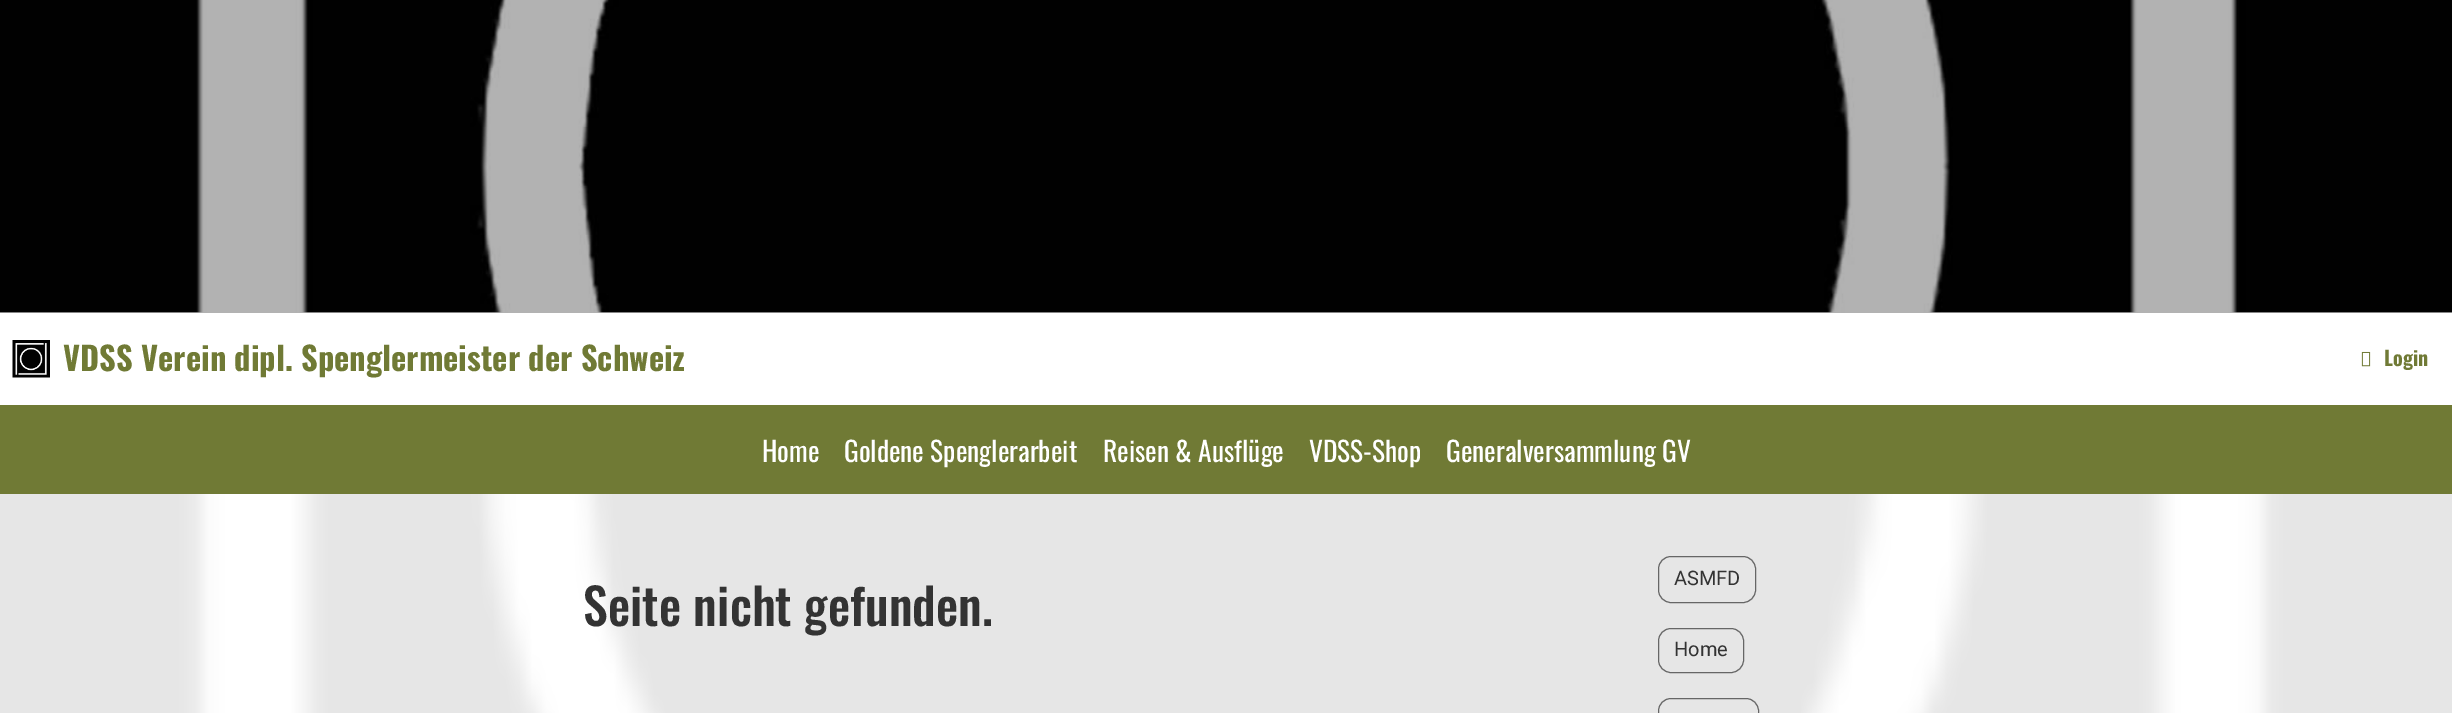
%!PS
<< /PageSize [2452 713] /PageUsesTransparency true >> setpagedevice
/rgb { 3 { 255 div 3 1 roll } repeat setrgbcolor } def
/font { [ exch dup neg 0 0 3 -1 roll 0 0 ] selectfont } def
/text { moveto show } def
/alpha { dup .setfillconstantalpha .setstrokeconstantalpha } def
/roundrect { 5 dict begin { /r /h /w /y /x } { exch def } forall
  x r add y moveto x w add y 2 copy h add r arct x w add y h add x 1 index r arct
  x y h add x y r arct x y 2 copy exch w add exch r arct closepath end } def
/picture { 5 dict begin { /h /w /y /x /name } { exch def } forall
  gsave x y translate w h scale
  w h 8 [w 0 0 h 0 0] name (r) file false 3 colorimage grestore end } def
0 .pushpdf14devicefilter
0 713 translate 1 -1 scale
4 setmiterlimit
255 255 255 rgb
0 0 2452 713 rectfill
(img_01.rgb) 0 0 2452 313 picture
0.3 alpha
0 0 0 rgb
0 0 2452 313 rectfill
1 alpha
(img_02.rgb) 12 340 38 38 picture
(img_03.rgb) 2361 351 10 16 picture
112 122 53 rgb
0 405 2452 89 rectfill
(img_04.rgb) 0 494 2452 219 picture
102 102 102 rgb
1658.5 556.5 97 46 12.5 roundrect stroke
1658.5 628.5 85 44 12.5 roundrect stroke
1658.5 698.5 100 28 12.5 roundrect stroke
/Oswald-Bold 32.5 font
112 122 53 rgb
(VDSS Verein dipl. Spenglermeister der Schweiz) 63 371 text
/Oswald-Bold 20 font
(Login) 2384 366 text
/Oswald-Regular 27.5 font
255 255 255 rgb
(Home) 762 462 text
(Goldene Spenglerarbeit) 844 462 text
(Reisen & Ausflüge) 1103 462 text
(VDSS-Shop) 1309 462 text
(Generalversammlung GV) 1446 462 text
/Oswald-Medium 50 font
51 51 51 rgb
(Seite nicht gefunden.) 583 626 text
/Roboto-Regular 20 font
(ASMFD) 1674 585 text
(Home) 1674 656 text
.poppdf14devicefilter showpage
